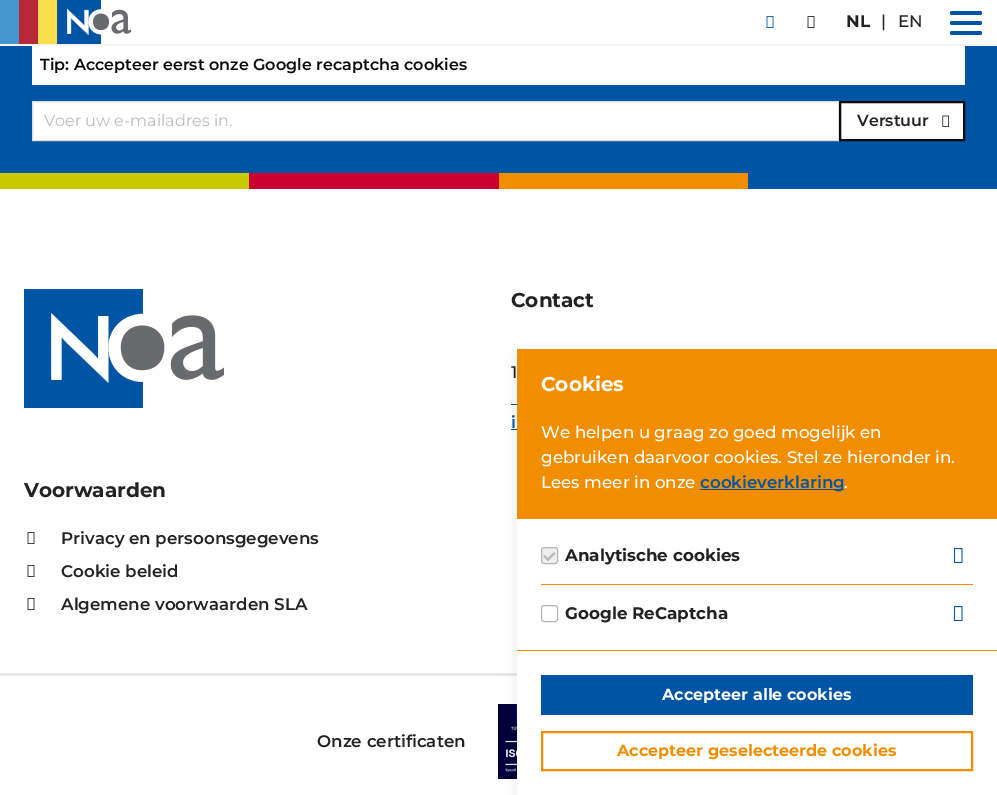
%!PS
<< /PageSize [997 795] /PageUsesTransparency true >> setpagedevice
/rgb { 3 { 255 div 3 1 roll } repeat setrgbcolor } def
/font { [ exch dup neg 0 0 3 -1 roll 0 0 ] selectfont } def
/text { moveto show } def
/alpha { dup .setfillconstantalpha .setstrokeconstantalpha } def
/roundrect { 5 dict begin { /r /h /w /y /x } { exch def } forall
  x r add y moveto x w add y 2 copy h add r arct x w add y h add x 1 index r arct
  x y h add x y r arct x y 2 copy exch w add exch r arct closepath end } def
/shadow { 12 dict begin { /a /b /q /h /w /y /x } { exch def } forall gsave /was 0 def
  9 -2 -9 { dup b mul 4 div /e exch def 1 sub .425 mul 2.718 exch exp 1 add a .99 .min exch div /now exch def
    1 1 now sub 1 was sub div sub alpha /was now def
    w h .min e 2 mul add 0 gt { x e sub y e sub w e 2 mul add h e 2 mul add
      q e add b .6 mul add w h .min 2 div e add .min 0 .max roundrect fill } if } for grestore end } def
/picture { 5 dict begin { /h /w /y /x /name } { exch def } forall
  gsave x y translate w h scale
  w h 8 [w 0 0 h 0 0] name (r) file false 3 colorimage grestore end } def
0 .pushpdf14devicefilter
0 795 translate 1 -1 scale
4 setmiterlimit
255 255 255 rgb
0 0 997 795 rectfill
245 245 245 rgb
0 44 997 2 rectfill
(img_01.rgb) 0 0 131 44 picture
(img_02.rgb) 766 16 8 12 picture
(img_03.rgb) 807 16 8 12 picture
0 84 164 rgb
950 31 32 4 2 roundrect fill
950 11 32 4 2 roundrect fill
950 21 32 4 2 roundrect fill
0 46 997 127 rectfill
255 255 255 rgb
32 46 933 39 rectfill
32.5 101.5 moveto 806 0 rlineto 0 39 rlineto -806 0 rlineto closepath gsave fill grestore
219 219 219 rgb
stroke
255 255 255 rgb
840 102 moveto 124 0 rlineto 0 38 rlineto -124 0 rlineto closepath gsave fill grestore
10 10 10 rgb
2 setlinewidth
stroke
(img_04.rgb) 942 115 7 12 picture
231 231 231 rgb
0 673 517 3 rectfill
200 201 0 rgb
0 173 249 16 rectfill
203 1 51 rgb
249 173 250 16 rectfill
241 142 0 rgb
499 173 249 16 rectfill
0 84 164 rgb
748 173 249 16 rectfill
(img_05.rgb) 24 289 200 119 picture
511 404 6 1 rectfill
511 429 6 1 rectfill
(img_03.rgb) 27 532 8 12 picture
(img_03.rgb) 27 565 8 12 picture
(img_03.rgb) 27 598 8 12 picture
(img_07.rgb) 498 704 19 75 picture
10 10 10 rgb
519 359 476 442 0 8.5 0.1 shadow
255 255 255 rgb
517 519 480 276 rectfill
241 142 0 rgb
517 349 480 170 rectfill
0 84 164 rgb
700 489 144 1 rectfill
241 142 0 rgb
517 650 480 1 rectfill
541 584 432 1 rectfill
238 238 238 rgb
541.5 547.5 16 16 2.5 roundrect gsave fill grestore
181 181 181 rgb
1 setlinewidth
stroke
546.5 559.5 moveto 7.5 -7.5 rlineto 1.5 1.5 rlineto -7.5 7.5 rlineto closepath fill
543.5 556.5 moveto 1 -1.5 rlineto 4.5 4.5 rlineto -1 1.5 rlineto closepath fill
(img_06.rgb) 953 548 10 15 picture
541.5 605.5 16 16 2.5 roundrect stroke
(img_06.rgb) 953 606 10 15 picture
0 84 164 rgb
541 675 432 40 rectfill
241 142 0 rgb
2 setlinewidth
542 732 430 38 rectstroke
/Montserrat-Bold 16.75 font
34 34 34 rgb
(NL) 846 27 text
/Montserrat-Medium 16.75 font
(|) 881 27 text
(EN) 898 27 text
/Montserrat-SemiBold 16 font
10 10 10 rgb
(Tip: Accepteer eerst onze Google recaptcha cookies) 40 70 text
/Montserrat-Regular 16 font
189 189 189 rgb
(Voer uw e-mailadres in.) 44 126 text
/Montserrat-SemiBold 16 font
34 34 34 rgb
(Verstuur) 857 126 text
/Montserrat-Bold 20 font
(Contact) 511 307 text
/Montserrat-Medium 16.75 font
(1) 511 378 text
/Montserrat-SemiBold 16.75 font
0 84 164 rgb
(i) 511 428 text
/Montserrat-Bold 20 font
34 34 34 rgb
(Voorwaarden) 24 497 text
/Montserrat-SemiBold 16.75 font
(Privacy en persoonsgegevens) 61 544 text
(Cookie beleid) 61 577 text
(Algemene voorwaarden SLA) 61 610 text
/Montserrat-Bold 20 font
255 255 255 rgb
(Cookies) 541 391 text
/Montserrat-Medium 16.75 font
(We helpen u graag zo goed mogelijk en) 541 438 text
(gebruiken daarvoor cookies. Stel ze hieronder in.) 541 463 text
(Lees meer in onze) 541 488 text
/Montserrat-SemiBold 16.75 font
0 84 164 rgb
(cookieverklaring) 700 488 text
/Montserrat-Medium 16.75 font
255 255 255 rgb
(.) 844 488 text
/Montserrat-Bold 16.75 font
34 34 34 rgb
(Analytische cookies) 565 561 text
(Google ReCaptcha) 565 619 text
/Montserrat-Bold 16 font
255 255 255 rgb
(Accepteer alle cookies) 662 700 text
241 142 0 rgb
(Accepteer geselecteerde cookies) 617 756 text
/Montserrat-SemiBold 16.75 font
34 34 34 rgb
(Onze certificaten) 317 747 text
.poppdf14devicefilter showpage
